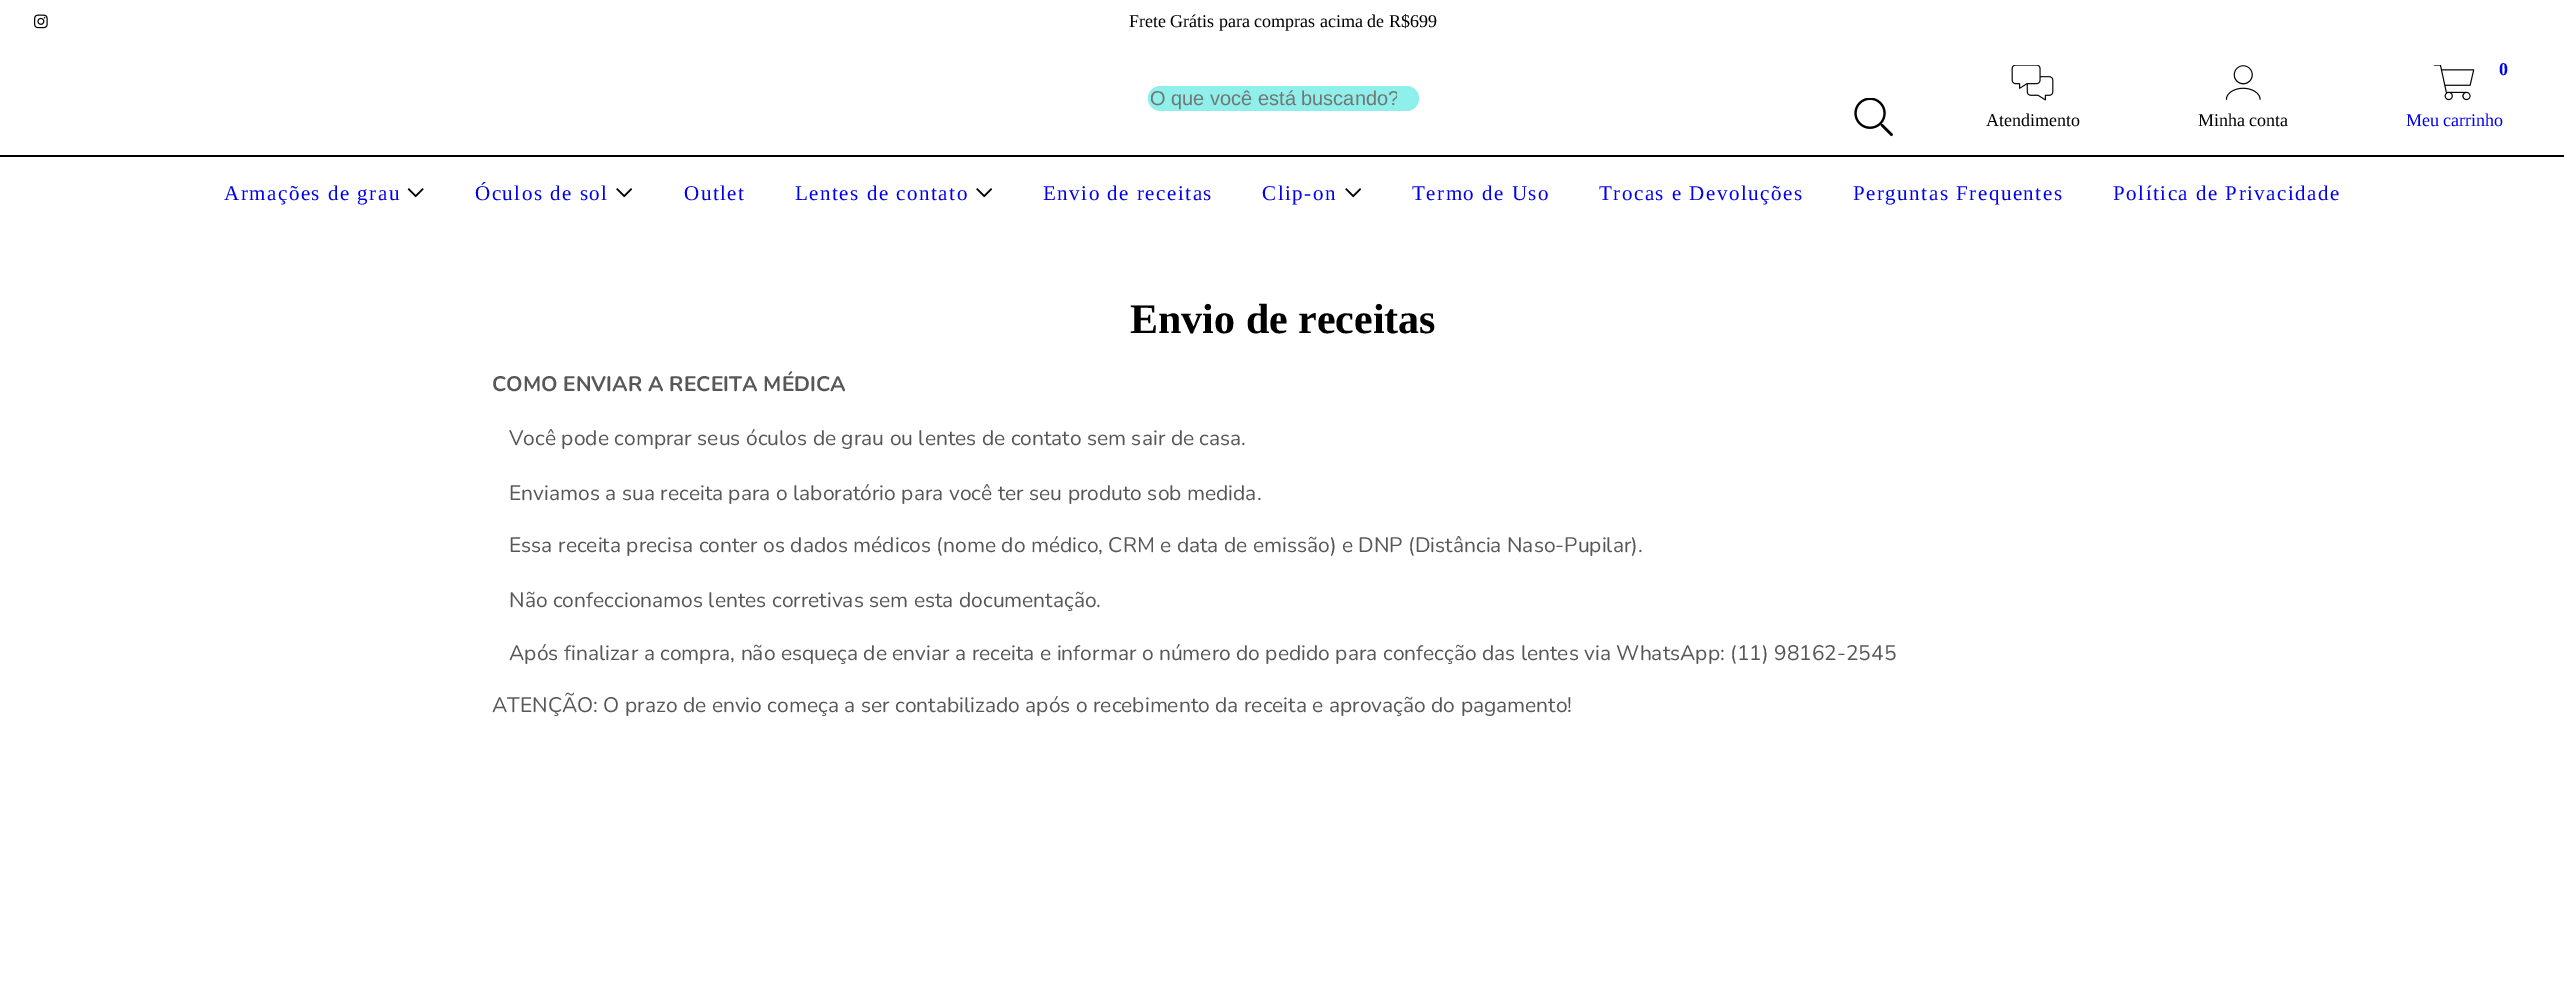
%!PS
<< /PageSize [2564 1002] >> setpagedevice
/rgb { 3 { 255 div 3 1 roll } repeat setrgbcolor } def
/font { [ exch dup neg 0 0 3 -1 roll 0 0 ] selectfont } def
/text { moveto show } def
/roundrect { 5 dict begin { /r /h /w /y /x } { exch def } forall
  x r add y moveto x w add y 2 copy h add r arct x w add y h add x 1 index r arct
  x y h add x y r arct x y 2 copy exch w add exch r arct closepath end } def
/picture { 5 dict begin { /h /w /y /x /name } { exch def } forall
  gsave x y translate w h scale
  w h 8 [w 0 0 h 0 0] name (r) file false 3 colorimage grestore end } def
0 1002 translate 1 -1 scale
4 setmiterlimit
255 255 255 rgb
0 0 2564 1002 rectfill
(img_01.rgb) 34 14 14 15 picture
143 239 235 rgb
1148 86 271 25 12.5 roundrect fill
(img_02.rgb) 1854 98 39 39 picture
(img_03.rgb) 2011 65 43 36 picture
(img_04.rgb) 2225 65 36 35 picture
(img_05.rgb) 2433 65 42 36 picture
0 0 0 rgb
0 155 2564 2 rectfill
(img_06.rgb) 407 188 17 10 picture
(img_07.rgb) 616 188 17 10 picture
(img_07.rgb) 976 188 17 10 picture
(img_07.rgb) 1345 188 17 10 picture
/LiberationSerif-Regular 18 font
(Frete Grátis para compras acima de R$699) 1129 27 text
gsave
1151 87 246 23 rectclip
/LiberationSans-Regular 20 font
117 117 117 rgb
(O que você está buscando?) 1150 105 text
grestore
(Atendimento) 1986 126 text
(Minha conta) 2198 126 text
/LiberationSerif-Bold 18 font
0 0 238 rgb
(0) 2499 75 text
/LiberationSerif-Regular 18 font
(Meu carrinho) 2406 126 text
/LiberationSerif-Regular 21 font
224 200 moveto 1.5 0 (Armações de grau) ashow
475 200 moveto 1.5 0 (Óculos de sol) ashow
684 200 moveto 1.5 0 (Outlet) ashow
795 200 moveto 1.5 0 (Lentes de contato) ashow
1043 200 moveto 1.5 0 (Envio de receitas) ashow
1262 200 moveto 1.5 0 (Clip-on) ashow
1412 200 moveto 1.5 0 (Termo de Uso) ashow
1599 200 moveto 1.5 0 (Trocas e Devoluções) ashow
1853 200 moveto 1.5 0 (Perguntas Frequentes) ashow
2113 200 moveto 1.5 0 (Política de Privacidade) ashow
/LiberationSerif-Bold 42 font
0 0 0 rgb
(Envio de receitas) 1130 333 text
/Nunito-Bold 21 font
87 87 87 rgb
(COMO ENVIAR A RECEITA MÉDICA) 492 391 text
/Nunito-Regular 21 font
(Você pode comprar seus óculos de grau ou lentes de contato sem sair de casa.) 509 445 text
(Enviamos a sua receita para o laboratório para você ter seu produto sob medida.) 509 500 text
(Essa receita precisa conter os dados médicos \(nome do médico, CRM e data de emissão\) e DNP \(Distância Naso-Pupilar\).) 509 552 text
(Não confeccionamos lentes corretivas sem esta documentação.) 509 607 text
(Após finalizar a compra, não esqueça de enviar a receita e informar o número do pedido para confecção das lentes via WhatsApp: \(11\) 98162-2545) 509 660 text
(ATENÇÃO: O prazo de envio começa a ser contabilizado após o recebimento da receita e aprovação do pagamento!) 492 712 text
showpage
